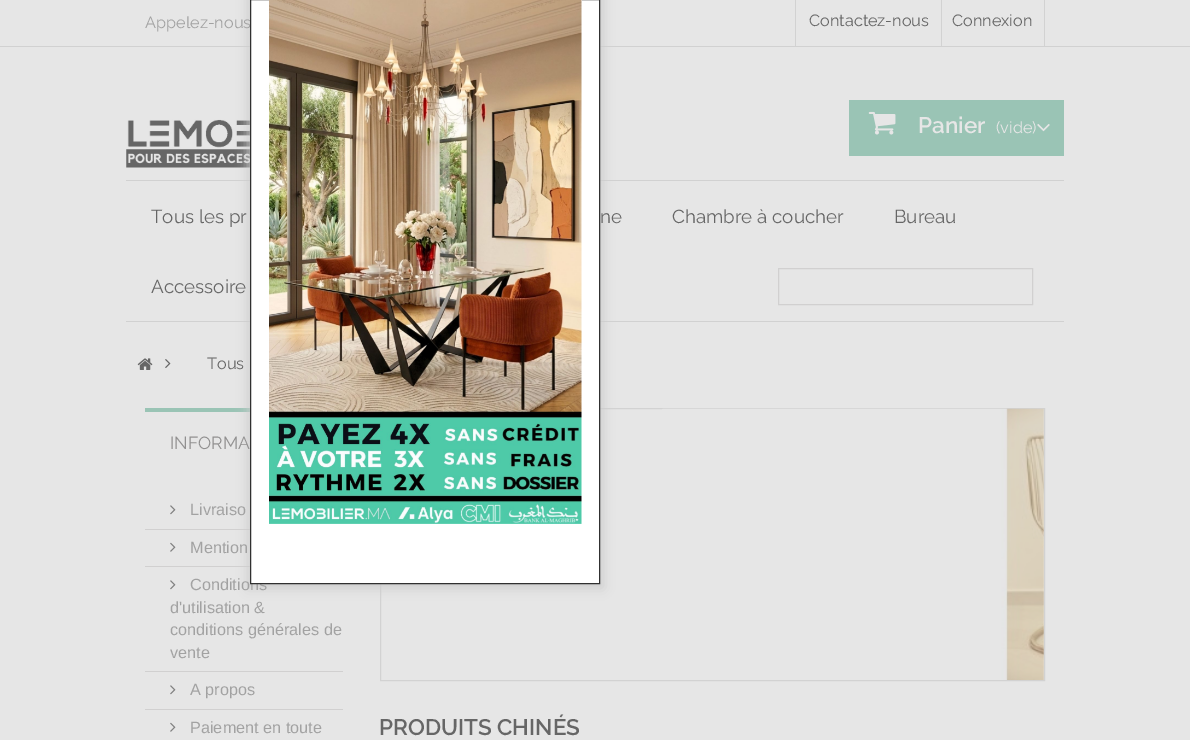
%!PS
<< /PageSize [1190 740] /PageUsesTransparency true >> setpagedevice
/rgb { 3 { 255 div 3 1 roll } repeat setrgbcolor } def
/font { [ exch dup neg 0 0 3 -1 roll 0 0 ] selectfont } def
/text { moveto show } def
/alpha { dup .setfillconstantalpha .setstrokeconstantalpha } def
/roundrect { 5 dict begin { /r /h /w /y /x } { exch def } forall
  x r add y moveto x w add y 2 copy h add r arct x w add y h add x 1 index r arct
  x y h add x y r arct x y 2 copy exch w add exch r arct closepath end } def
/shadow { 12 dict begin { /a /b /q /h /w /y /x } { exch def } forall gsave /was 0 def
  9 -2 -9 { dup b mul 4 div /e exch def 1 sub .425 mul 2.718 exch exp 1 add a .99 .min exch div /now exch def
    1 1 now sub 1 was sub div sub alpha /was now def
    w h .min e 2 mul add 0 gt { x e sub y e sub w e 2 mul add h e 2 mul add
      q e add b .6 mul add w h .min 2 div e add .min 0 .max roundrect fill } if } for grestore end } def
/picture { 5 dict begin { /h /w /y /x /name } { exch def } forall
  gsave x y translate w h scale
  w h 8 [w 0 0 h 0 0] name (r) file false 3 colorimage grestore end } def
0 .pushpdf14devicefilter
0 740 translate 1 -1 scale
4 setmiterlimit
230 230 230 rgb
0 0 1190 740 rectfill
209 209 209 rgb
0 46 1190 1 rectfill
(img_02.rgb) 126 118 124 50 picture
126 180 938 1 rectfill
126 321 938 1 rectfill
154 196 181 rgb
145 408 105 4 rectfill
209 208 208 rgb
145 529 105 1 rectfill
145 566 105 1 rectfill
210 210 210 rgb
380.5 408.5 664 272 rectstroke
204 204 204 rgb
248 -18 355 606 0 6 1 shadow
210 210 210 rgb
795 0 1 46 rectfill
1044 0 1 46 rectfill
941 0 1 46 rectfill
154 196 181 rgb
849 100 215 56 rectfill
(img_03.rgb) 868 111 28 24 picture
(img_04.rgb) 1037 124 13 8 picture
209 208 208 rgb
778.5 268.5 254 36 rectstroke
(img_05.rgb) 137 358 16 12 picture
(img_06.rgb) 165 359 6 9 picture
(img_07.rgb) 170 505 6 10 picture
(img_08.rgb) 170 542 6 10 picture
(img_07.rgb) 170 580 6 10 picture
145 671 198 1 rectfill
(img_07.rgb) 170 685 6 10 picture
145 709 198 1 rectfill
(img_08.rgb) 170 722 6 10 picture
(img_09.rgb) 662 408 382 272 picture
/Raleway-Regular 16.25 font
162 162 162 rgb
(Appelez-nous) 145 28 text
102 102 102 rgb
(Contactez-nous) 809 26 text
(Connexion) 952 26 text
/Raleway-SemiBold 22.5 font
230 230 230 rgb
(Panier) 918 133 text
/Raleway-Regular 16.25 font
(\(vide\)) 996 133 text
/Raleway-Regular 18.75 font
102 102 102 rgb
(Tous les pr) 151 223 text
(ne) 600 223 text
(Chambre à coucher) 672 223 text
(Bureau) 894 223 text
(Accessoire) 151 293 text
/Raleway-Regular 16.25 font
(Tous) 207 369 text
/Raleway-Regular 17.5 font
145 144 144 rgb
(INFORMA) 170 449 text
/LiberationSans-Regular 16.25 font
162 162 162 rgb
(Livraiso) 190 515 text
(Mention) 190 553 text
(Conditions) 190 590 text
255 255 255 rgb
250.5 -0.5 moveto 349 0 rlineto 0 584 rlineto -349 0 rlineto closepath gsave fill grestore
48 48 48 rgb
stroke
(img_01.rgb) 269 0 313 524 picture
162 162 162 rgb
(d'utilisation &) 170 613 text
(conditions générales de) 170 635 text
(vente) 170 658 text
(A propos) 190 695 text
(Paiement en toute) 190 733 text
/Raleway-SemiBold 22.5 font
102 102 102 rgb
(PRODUITS CHINÉS) 379 735 text
.poppdf14devicefilter showpage
